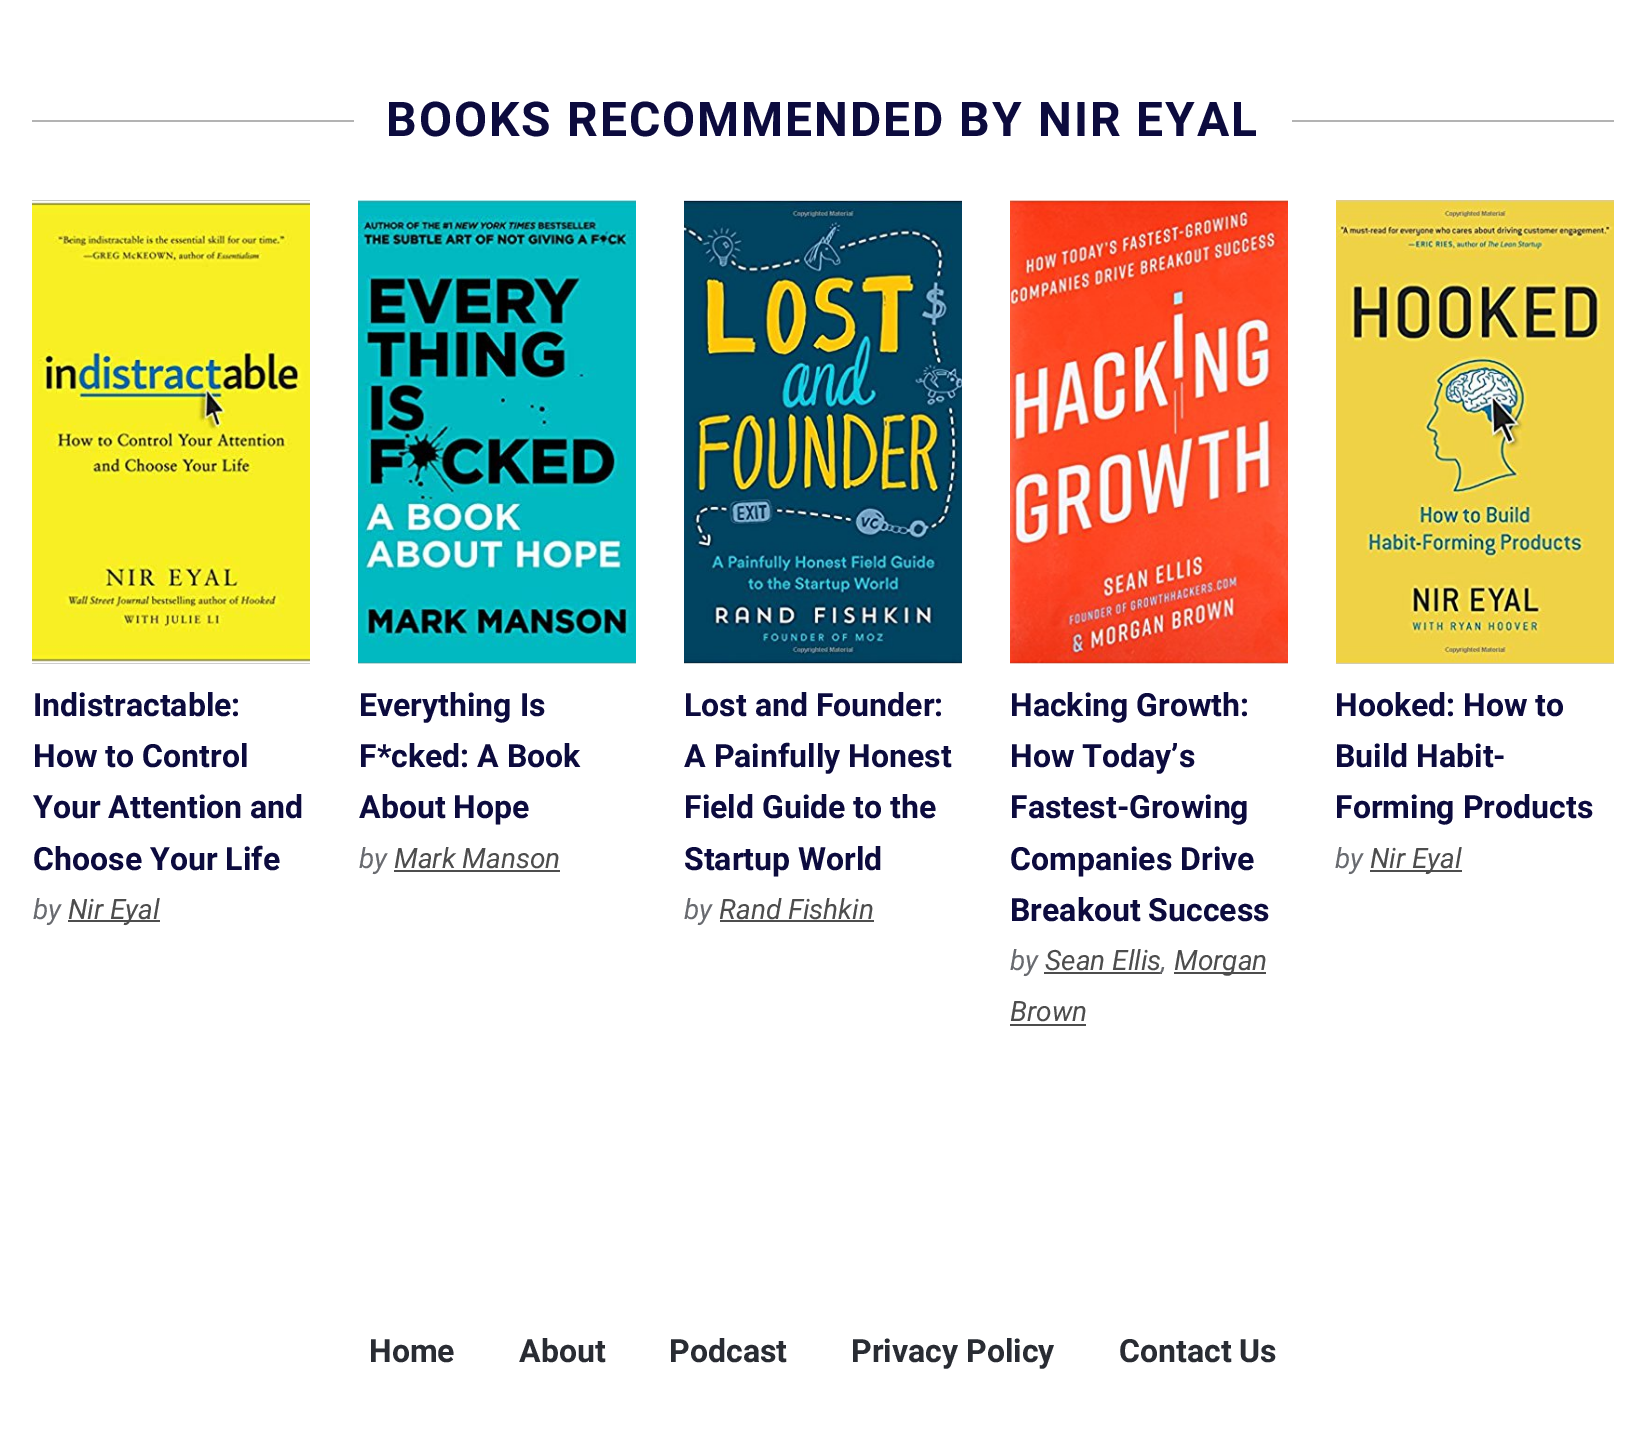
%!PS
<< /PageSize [1646 1438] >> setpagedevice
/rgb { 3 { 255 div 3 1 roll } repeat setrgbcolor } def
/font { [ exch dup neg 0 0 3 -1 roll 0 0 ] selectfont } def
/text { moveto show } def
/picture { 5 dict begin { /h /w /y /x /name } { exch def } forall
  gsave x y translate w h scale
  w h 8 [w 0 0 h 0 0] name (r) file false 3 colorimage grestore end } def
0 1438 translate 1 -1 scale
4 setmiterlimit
255 255 255 rgb
0 0 1646 1438 rectfill
179 179 179 rgb
32 120 1582 2 rectfill
255 255 255 rgb
354 120 938 2 rectfill
(img_01.rgb) 32 200 278 464 picture
77 77 77 rgb
68 920 92 2 rectfill
(img_02.rgb) 358 200 278 464 picture
394 870 166 2 rectfill
(img_03.rgb) 684 200 278 464 picture
720 920 154 2 rectfill
(img_04.rgb) 1010 200 278 464 picture
1044 972 118 2 rectfill
1174 972 92 2 rectfill
1010 1024 76 2 rectfill
(img_05.rgb) 1336 200 278 464 picture
1370 870 92 2 rectfill
/Roboto-Bold 48 font
12 11 62 rgb
386 136 moveto 2 0 (BOOKS RECOMMENDED BY NIR EYAL) ashow
/Roboto-Bold 32 font
(Indistractable:) 33 716 text
(How to Control) 33 767 text
(Your Attention and) 33 818 text
(Choose Your Life) 33 870 text
/Roboto-Italic 28 font
105 107 112 rgb
(by) 33 919 text
77 77 77 rgb
(Nir Eyal) 68 919 text
/Roboto-Bold 32 font
12 11 62 rgb
(Everything Is) 359 716 text
(F*cked: A Book) 359 767 text
(About Hope) 359 818 text
/Roboto-Italic 28 font
105 107 112 rgb
(by) 359 868 text
77 77 77 rgb
(Mark Manson) 394 868 text
/Roboto-Bold 32 font
12 11 62 rgb
(Lost and Founder:) 684 716 text
(A Painfully Honest) 684 767 text
(Field Guide to the) 684 818 text
(Startup World) 684 870 text
/Roboto-Italic 28 font
105 107 112 rgb
(by) 684 919 text
77 77 77 rgb
(Rand Fishkin) 719 919 text
/Roboto-Bold 32 font
12 11 62 rgb
(Hacking Growth:) 1010 716 text
(How Today’s) 1010 767 text
(Fastest-Growing) 1010 818 text
(Companies Drive) 1010 870 text
(Breakout Success) 1010 921 text
/Roboto-Italic 28 font
105 107 112 rgb
(by) 1010 970 text
77 77 77 rgb
(Sean Ellis) 1045 970 text
105 107 112 rgb
(,) 1161 970 text
77 77 77 rgb
(Morgan) 1174 970 text
(Brown) 1010 1021 text
/Roboto-Bold 32 font
12 11 62 rgb
(Hooked: How to) 1335 716 text
(Build Habit-) 1335 767 text
(Forming Products) 1335 818 text
/Roboto-Italic 28 font
105 107 112 rgb
(by) 1335 868 text
77 77 77 rgb
(Nir Eyal) 1370 868 text
/Roboto-Bold 32 font
41 44 51 rgb
(Home) 369 1362 text
(About) 519 1362 text
(Podcast) 669 1362 text
(Privacy Policy) 851 1362 text
(Contact Us) 1119 1362 text
showpage
